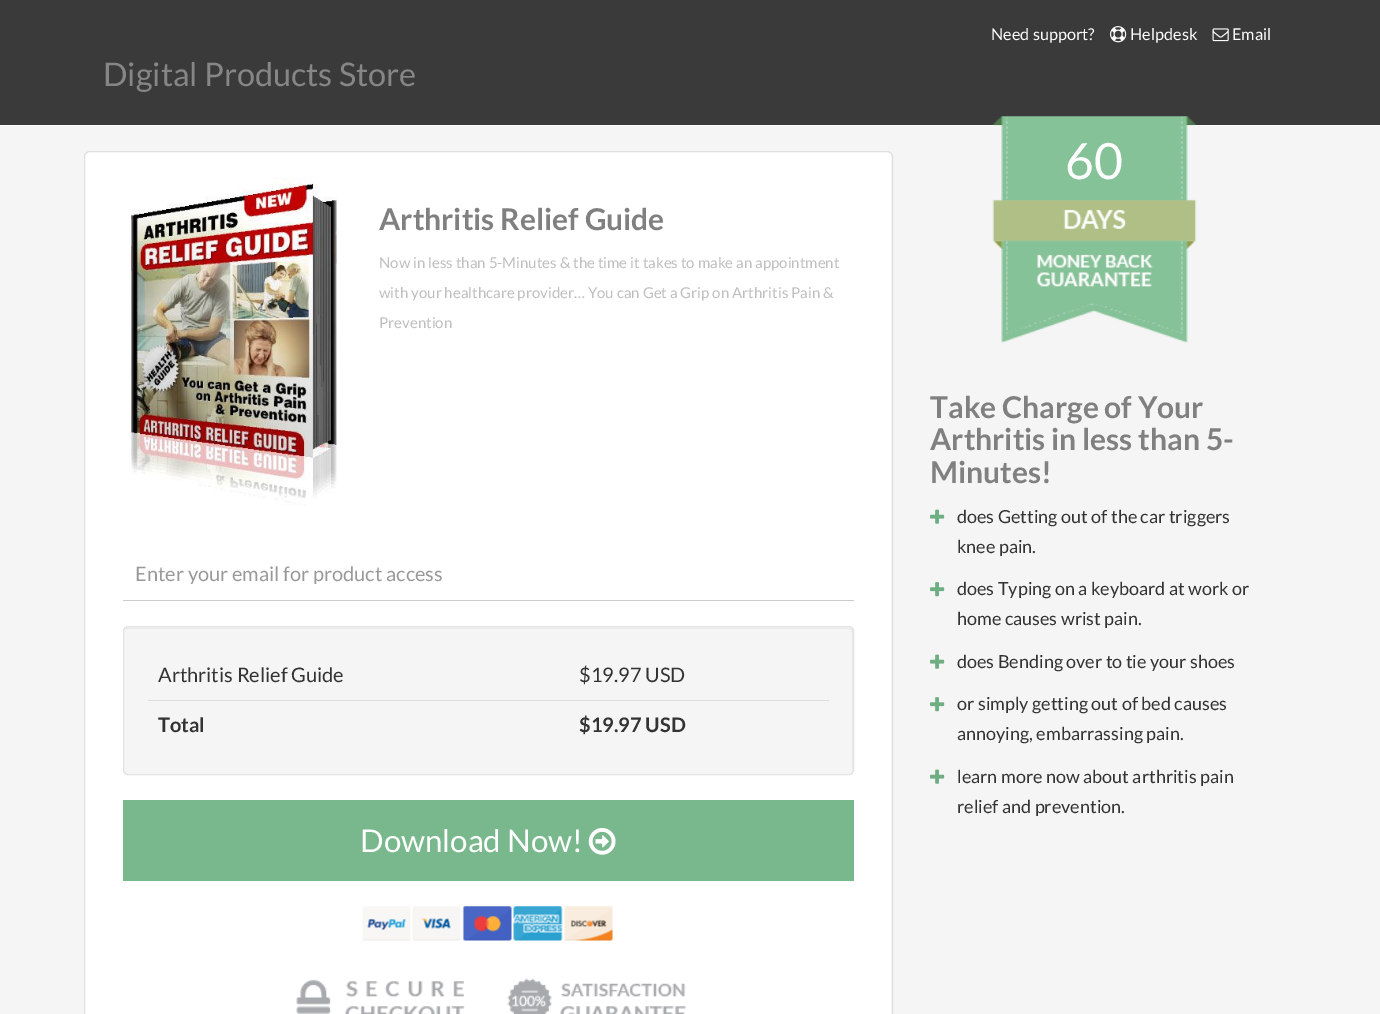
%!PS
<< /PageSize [1380 1014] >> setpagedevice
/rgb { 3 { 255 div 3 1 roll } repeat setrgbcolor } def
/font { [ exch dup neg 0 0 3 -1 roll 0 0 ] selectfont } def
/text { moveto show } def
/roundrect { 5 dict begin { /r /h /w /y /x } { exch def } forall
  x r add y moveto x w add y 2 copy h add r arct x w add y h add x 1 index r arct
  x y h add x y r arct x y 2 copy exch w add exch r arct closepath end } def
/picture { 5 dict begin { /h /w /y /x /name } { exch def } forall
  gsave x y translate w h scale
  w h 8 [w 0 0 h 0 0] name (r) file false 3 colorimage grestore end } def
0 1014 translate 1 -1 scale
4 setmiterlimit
245 245 245 rgb
0 0 1380 1014 rectfill
58 58 58 rgb
0 0 1380 125 rectfill
254 254 254 rgb
0 125 1380 1 rectfill
(img_01.rgb) 1110 26 17 17 picture
(img_02.rgb) 1212 28 17 14 picture
255 255 255 rgb
90 152 moveto 796 0 rlineto 3 0 5 3 5 6 rcurveto 0 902 rlineto 0 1 -2 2 -5 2 rcurveto -796 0 rlineto -3 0 -5 -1 -5 -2 rcurveto 0 -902 rlineto 0 -3 2 -6 5 -6 rcurveto closepath fill
224 224 224 rgb
84.5 151.5 808 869 5.5 roundrect stroke
(img_03.rgb) 129 177 208 329 picture
203 203 203 rgb
123 600 731 1 rectfill
245 245 245 rgb
123 626 731 149 5 roundrect fill
233 233 233 rgb
128 629 moveto 721 0 rlineto 2 0 3 1 3 3 rcurveto 0 139 rlineto 0 2 rlineto 0 -1 1 -2 1 -3 rcurveto 0 -138 rlineto 0 -2 -2 -4 -4 -4 rcurveto -721 0 rlineto -2 0 -3 1 -4 2 rcurveto 1 -1 2 -1 4 -1 rcurveto closepath fill
227 227 227 rgb
123.5 626.5 730 148 4.5 roundrect stroke
221 221 221 rgb
148 700 681 1 rectfill
121 184 140 rgb
123 800 731 81 rectfill
(img_04.rgb) 588 827 28 28 picture
(img_05.rgb) 362 906 251 35 picture
(img_06.rgb) 296 979 169 35 picture
(img_07.rgb) 507 978 180 36 picture
(img_08.rgb) 992 116 205 227 picture
(img_09.rgb) 930 509 15 15 picture
(img_10.rgb) 930 582 15 15 picture
(img_09.rgb) 930 654 15 15 picture
(img_10.rgb) 930 697 15 15 picture
(img_09.rgb) 930 769 15 15 picture
/Lato-Regular 16.25 font
254 254 254 rgb
(Need support?) 991 40 text
(Helpdesk) 1130 40 text
(Email) 1232 40 text
/Lato-Regular 32.5 font
134 134 134 rgb
(Digital Products Store) 103 86 text
/Lato-Bold 30 font
128 128 128 rgb
(Arthritis Relief Guide) 379 230 text
/Lato-Regular 15 font
191 191 191 rgb
(Now in less than 5-Minutes & the time it takes to make an appointment) 379 268 text
(with your healthcare provider… You can Get a Grip on Arthritis Pain &) 379 298 text
(Prevention) 379 328 text
gsave
135 560 706 24 rectclip
/Lato-Regular 20 font
153 153 153 rgb
(Enter your email for product access) 135 581 text
grestore
/Lato-Regular 20 font
51 51 51 rgb
(Arthritis Relief Guide) 158 682 text
($19.97 USD) 579 682 text
/Lato-Bold 20 font
(Total) 158 732 text
($19.97 USD) 579 732 text
/Lato-Regular 31.25 font
254 254 254 rgb
(Download Now!) 360 852 text
/Lato-Regular 50 font
(60) 1065 179 text
/Lato-Bold 30 font
128 128 128 rgb
(Take Charge of Your) 930 418 text
(Arthritis in less than 5-) 930 450 text
(Minutes!) 930 483 text
/Lato-Regular 18 font
51 51 51 rgb
(does Getting out of the car triggers) 957 523 text
(knee pain.) 957 553 text
(does Typing on a keyboard at work or) 957 595 text
(home causes wrist pain.) 957 625 text
(does Bending over to tie your shoes) 957 668 text
(or simply getting out of bed causes) 957 710 text
(annoying, embarrassing pain.) 957 740 text
(learn more now about arthritis pain) 957 783 text
(relief and prevention.) 957 813 text
showpage
